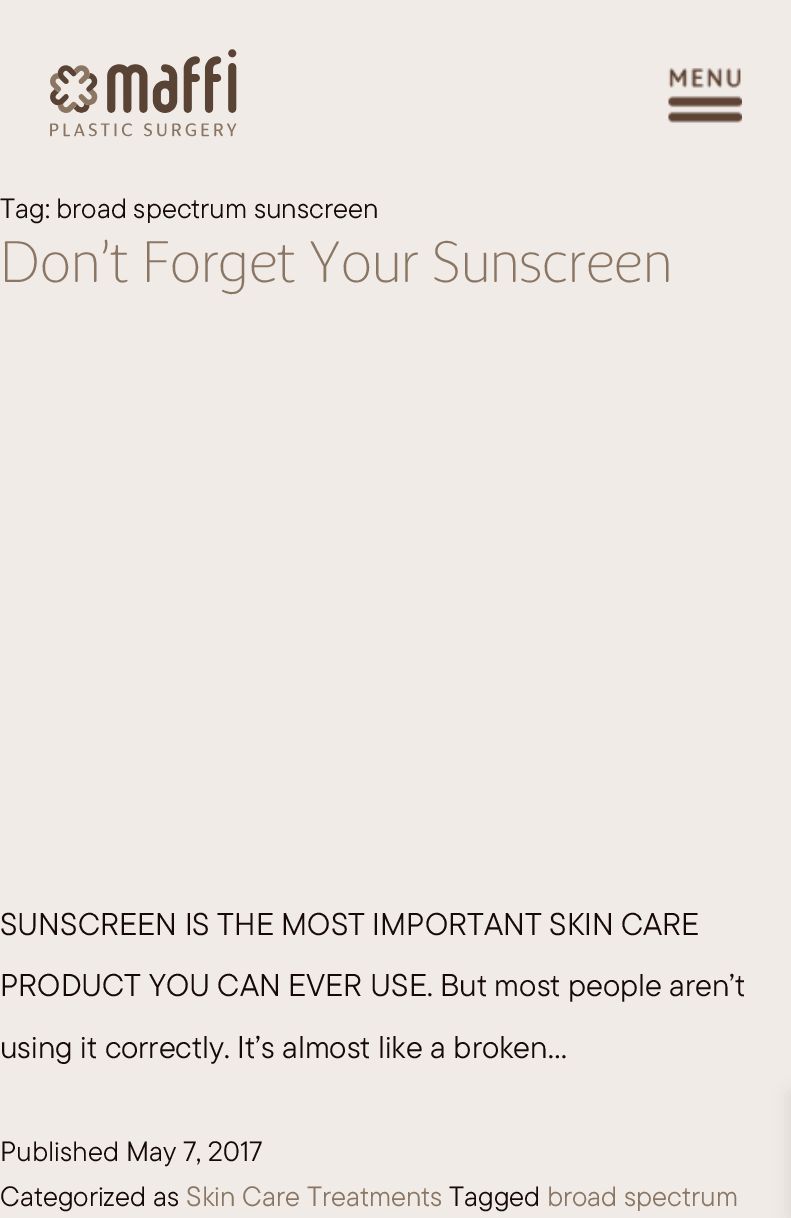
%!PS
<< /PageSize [791 1218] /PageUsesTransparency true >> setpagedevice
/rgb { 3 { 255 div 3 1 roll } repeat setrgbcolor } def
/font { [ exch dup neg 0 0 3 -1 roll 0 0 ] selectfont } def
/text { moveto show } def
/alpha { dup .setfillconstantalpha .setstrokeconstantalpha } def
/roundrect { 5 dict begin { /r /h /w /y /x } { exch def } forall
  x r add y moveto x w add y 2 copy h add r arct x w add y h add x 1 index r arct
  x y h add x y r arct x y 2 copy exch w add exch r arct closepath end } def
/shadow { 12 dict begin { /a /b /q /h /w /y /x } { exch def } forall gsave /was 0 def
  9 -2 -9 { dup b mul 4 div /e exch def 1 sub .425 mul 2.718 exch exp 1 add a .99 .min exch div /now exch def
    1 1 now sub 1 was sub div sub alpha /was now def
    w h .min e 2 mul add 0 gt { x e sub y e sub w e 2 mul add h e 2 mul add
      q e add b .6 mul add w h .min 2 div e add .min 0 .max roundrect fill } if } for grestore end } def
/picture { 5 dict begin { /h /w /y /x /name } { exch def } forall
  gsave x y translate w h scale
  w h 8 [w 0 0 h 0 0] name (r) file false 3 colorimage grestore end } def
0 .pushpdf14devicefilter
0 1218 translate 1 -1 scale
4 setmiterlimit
240 235 231 rgb
0 0 791 1218 rectfill
(img_01.rgb) 50 49 187 88 picture
(img_02.rgb) 668 68 74 55 picture
0 0 0 rgb
791 1094 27 122 0 9 0.1 shadow
/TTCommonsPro-Regular 28 font
22 10 6 rgb
(Tag: broad spectrum sunscreen) 0 218 text
/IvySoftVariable-ExtraLight 56 font
139 118 99 rgb
(Don’t Forget Your Sunscreen) 0 282 text
/TTCommonsPro-Regular 31.5 font
22 10 6 rgb
(SUNSCREEN IS THE MOST IMPORTANT SKIN CARE) 0 935 text
(PRODUCT YOU CAN EVER USE. But most people aren’t) 0 996 text
(using it correctly. It’s almost like a broken…) 0 1058 text
/TTCommonsPro-Regular 28 font
(Published May 7, 2017) 0 1161 text
(Categorized as) 0 1206 text
139 118 99 rgb
(Skin Care Treatments) 186 1206 text
22 10 6 rgb
(Tagged) 449 1206 text
139 118 99 rgb
(broad spectrum) 547 1206 text
.poppdf14devicefilter showpage
